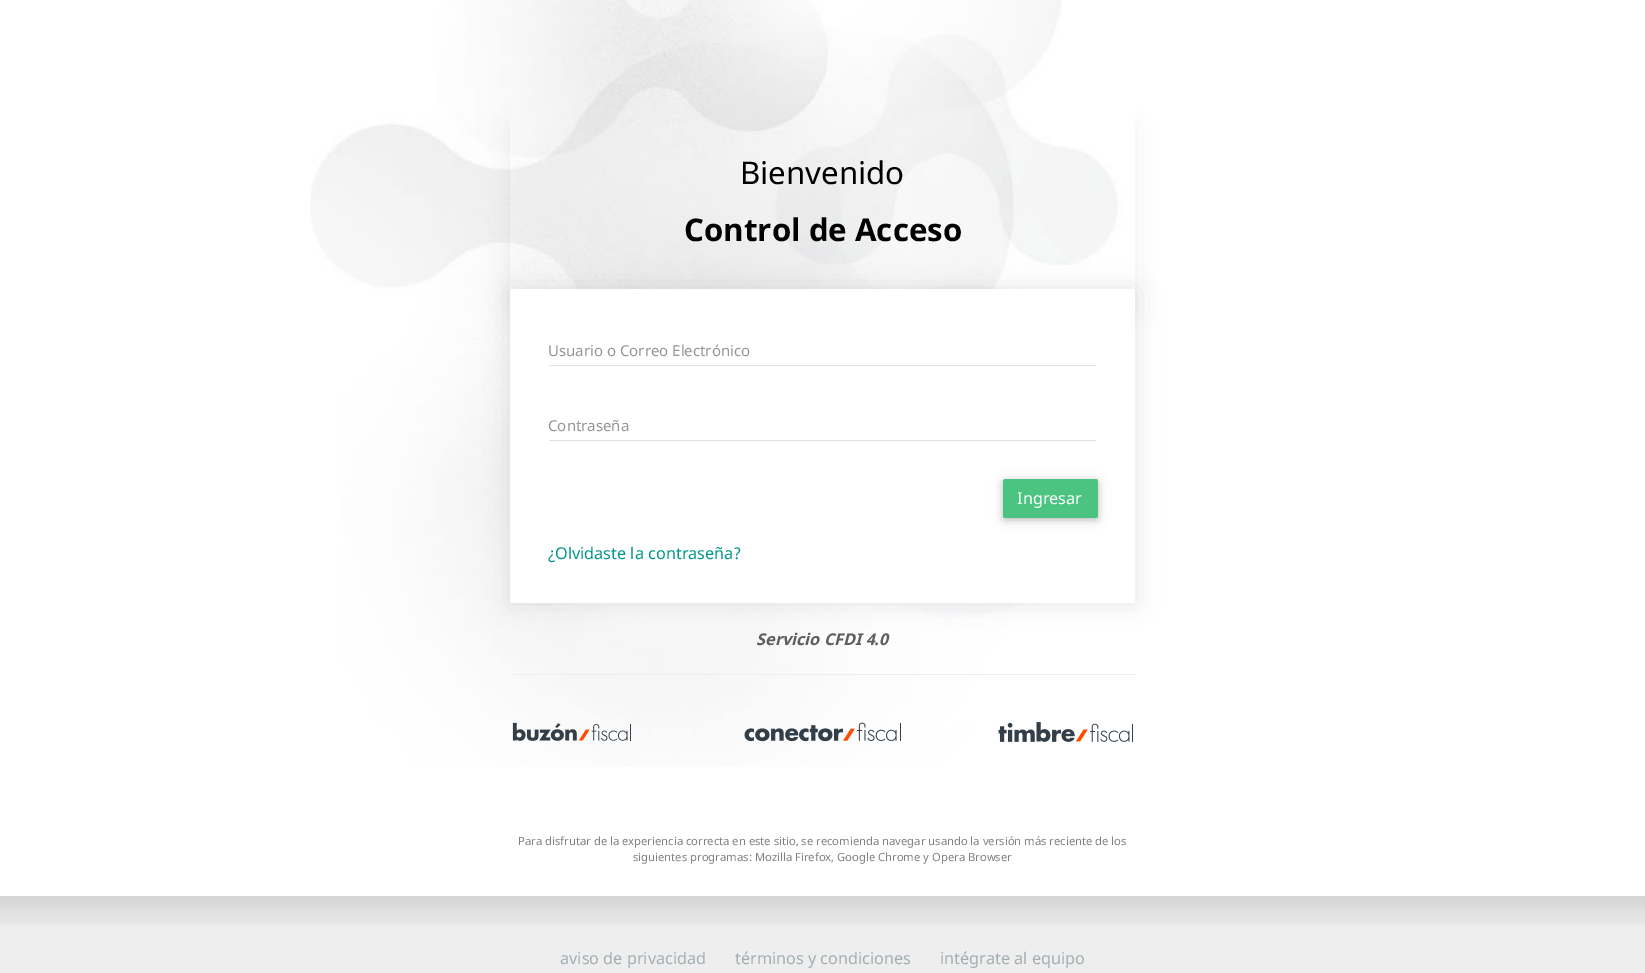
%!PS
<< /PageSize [1645 973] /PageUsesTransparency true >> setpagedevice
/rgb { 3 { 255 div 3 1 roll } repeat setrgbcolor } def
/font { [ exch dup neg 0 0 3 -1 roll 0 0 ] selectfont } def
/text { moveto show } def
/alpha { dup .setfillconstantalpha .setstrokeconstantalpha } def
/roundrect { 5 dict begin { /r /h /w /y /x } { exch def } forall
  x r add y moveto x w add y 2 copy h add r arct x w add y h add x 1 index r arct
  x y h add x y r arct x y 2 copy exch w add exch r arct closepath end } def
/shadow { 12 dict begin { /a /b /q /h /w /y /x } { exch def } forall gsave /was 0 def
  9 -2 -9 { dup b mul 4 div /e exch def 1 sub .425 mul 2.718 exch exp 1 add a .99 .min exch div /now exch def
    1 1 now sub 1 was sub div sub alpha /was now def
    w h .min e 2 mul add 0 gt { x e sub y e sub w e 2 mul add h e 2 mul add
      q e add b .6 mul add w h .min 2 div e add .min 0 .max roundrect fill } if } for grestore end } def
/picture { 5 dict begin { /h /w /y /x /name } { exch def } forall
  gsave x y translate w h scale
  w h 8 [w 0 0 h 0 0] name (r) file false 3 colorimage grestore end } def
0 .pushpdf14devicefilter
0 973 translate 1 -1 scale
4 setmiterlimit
255 255 255 rgb
0 0 1645 973 rectfill
(img_01.rgb) 310 0 813 767 picture
gsave
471 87 moveto 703 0 rlineto 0 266 rlineto -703 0 rlineto closepath 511 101 moveto 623 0 rlineto 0.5 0 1 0.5 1 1 rcurveto 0 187 rlineto -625 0 rlineto 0 -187 rlineto 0 -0.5 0.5 -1 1 -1 rcurveto closepath eoclip newpath
0 0 0 rgb
510 126 625 188 1 12.5 0.05 shadow
grestore
0 0 0 rgb
510 289 625 314 0 12.5 0.1 shadow
255 255 255 rgb
510 289 625 314 rectfill
224 224 224 rgb
549 365 547 1 rectfill
549 440 547 1 rectfill
0 0 0 rgb
1003 481 95 39 2.5 6 0.12 shadow
1003 481 95 39 2.5 3 0.16 shadow
75 195 129 rgb
1003 479 95 39 2.5 roundrect fill
238 238 238 rgb
510 674 625 1 rectfill
(img_02.rgb) 512 722 119 19 picture
(img_03.rgb) 744 722 157 20 picture
(img_04.rgb) 998 722 135 20 picture
0 925 1645 48 rectfill
(img_05.rgb) 0 896 1645 29 picture
/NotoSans-Regular 31.25 font
0 0 0 rgb
(Bienvenido) 740 184 text
/NotoSans-Bold 31.25 font
(Control de Acceso) 684 241 text
/NotoSans-Regular 15 font
149 149 149 rgb
(Usuario o Correo Electrónico) 548 356 text
(Contraseña) 548 431 text
/NotoSans-Regular 16.25 font
255 255 255 rgb
(Ingresar) 1017 504 text
0 150 136 rgb
(¿Olvidaste la contraseña?) 548 559 text
/NotoSans-BoldItalic 16.25 font
94 94 94 rgb
(Servicio CFDI 4.0) 756 645 text
/NotoSans-Regular 11.25 font
128 128 128 rgb
(Para disfrutar de la experiencia correcta en este sitio, se recomienda navegar usando la versión más reciente de los) 518 845 text
(siguientes programas: Mozilla Firefox, Google Chrome y Opera Browser) 633 861 text
/NotoSans-Regular 16.25 font
163 173 178 rgb
(aviso de privacidad) 560 964 text
(términos y condiciones) 735 964 text
(intégrate al equipo) 940 964 text
.poppdf14devicefilter showpage
